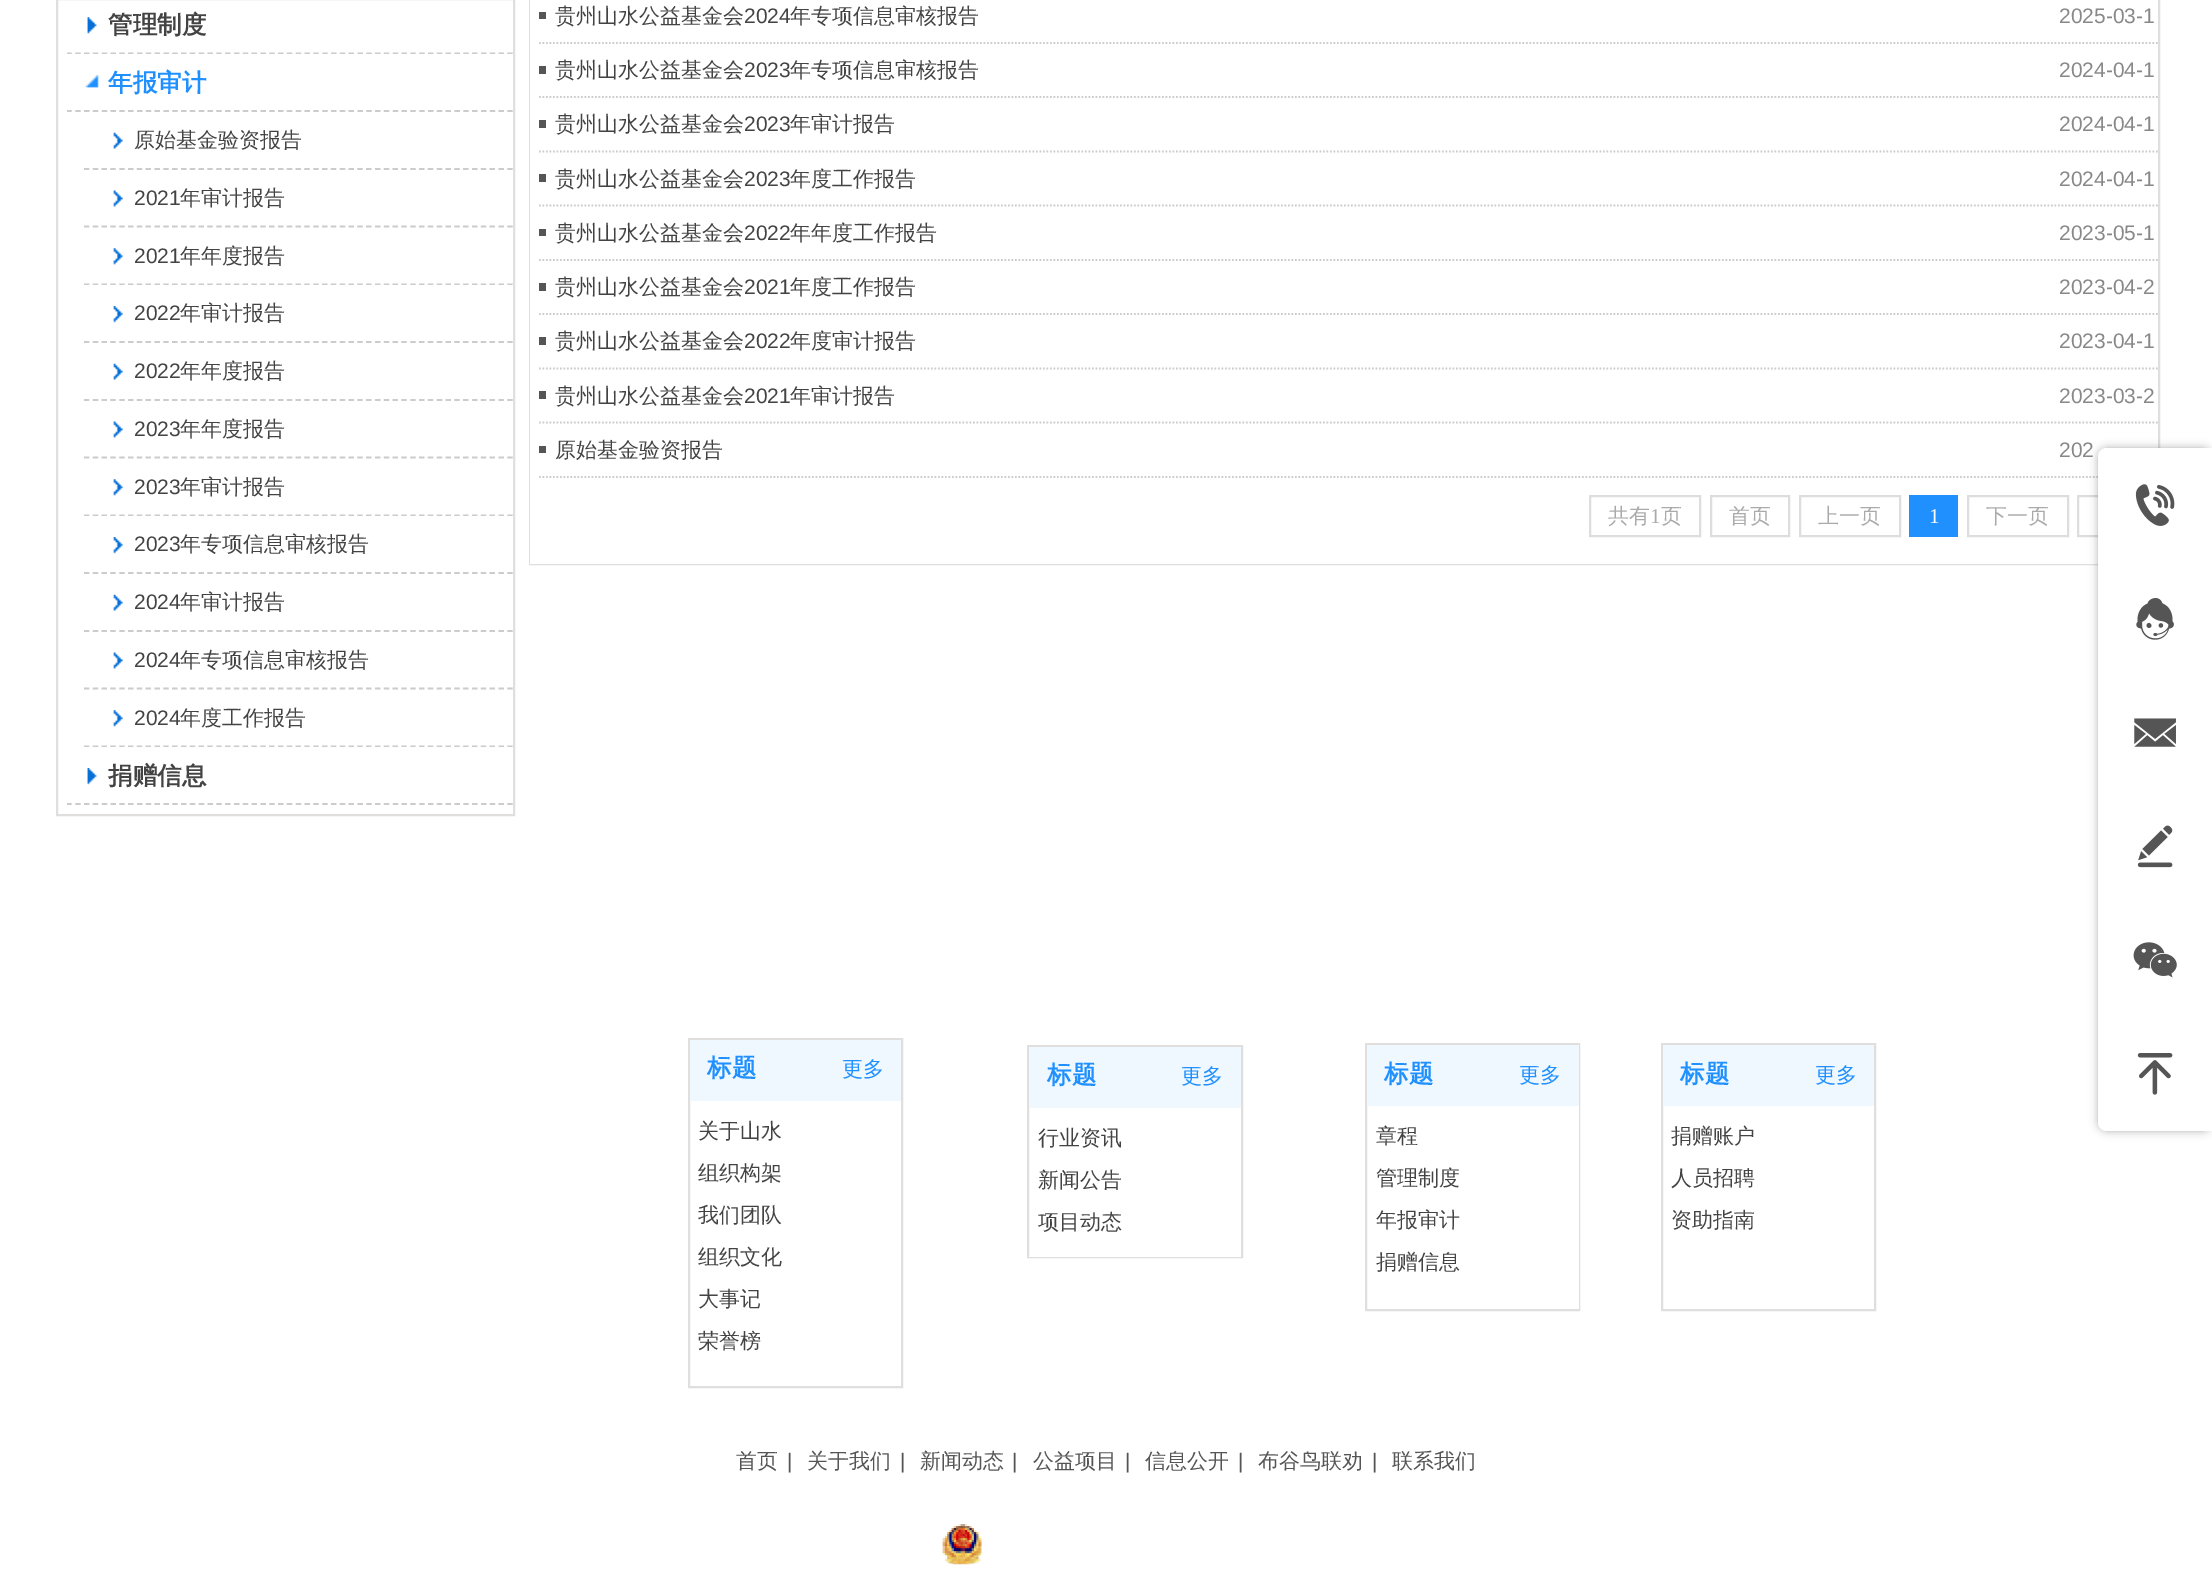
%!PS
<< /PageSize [2212 1577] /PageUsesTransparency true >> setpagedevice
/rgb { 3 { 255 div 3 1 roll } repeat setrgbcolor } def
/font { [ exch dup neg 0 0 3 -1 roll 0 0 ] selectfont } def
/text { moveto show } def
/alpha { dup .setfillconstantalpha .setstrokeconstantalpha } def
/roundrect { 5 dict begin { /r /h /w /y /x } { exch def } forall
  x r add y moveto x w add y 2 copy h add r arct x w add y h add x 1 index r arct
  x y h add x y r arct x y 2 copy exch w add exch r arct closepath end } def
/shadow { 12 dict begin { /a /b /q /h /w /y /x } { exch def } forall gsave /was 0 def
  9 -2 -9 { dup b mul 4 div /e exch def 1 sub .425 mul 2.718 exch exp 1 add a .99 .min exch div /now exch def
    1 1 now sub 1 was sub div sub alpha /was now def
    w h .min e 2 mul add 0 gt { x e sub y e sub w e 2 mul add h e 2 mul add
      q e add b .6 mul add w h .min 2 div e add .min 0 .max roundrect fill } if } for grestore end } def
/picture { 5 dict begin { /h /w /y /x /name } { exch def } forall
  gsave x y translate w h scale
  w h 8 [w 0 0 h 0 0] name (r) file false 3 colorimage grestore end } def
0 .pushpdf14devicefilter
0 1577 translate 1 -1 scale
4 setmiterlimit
255 255 255 rgb
0 0 2212 1577 rectfill
224 223 221 rgb
2 setlinewidth
57 -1 457 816 rectstroke
gsave
67 0 446 54 rectclip
204 204 204 rgb
1.8 setlinewidth
[5.25 3.57] 0 setdash
66.5 53.5 moveto 455 0 rlineto stroke
grestore
(img_01.rgb) 87 17 10 17 picture
gsave
67 54 446 58 rectclip
204 204 204 rgb
1.8 setlinewidth
[5.25 3.57] 0 setdash
66.5 111 moveto 455 0 rlineto stroke
grestore
(img_02.rgb) 85 75 14 13 picture
gsave
67 112 446 58 rectclip
204 204 204 rgb
1.8 setlinewidth
[5.25 3.57] 0 setdash
84 169 moveto 437.5 0 rlineto stroke
grestore
(img_03.rgb) 113 132 10 17 picture
gsave
67 170 446 58 rectclip
204 204 204 rgb
1.8 setlinewidth
[5.25 3.57] 0 setdash
84 226.5 moveto 437.5 0 rlineto stroke
grestore
(img_04.rgb) 113 190 10 17 picture
gsave
67 228 446 57 rectclip
204 204 204 rgb
1.8 setlinewidth
[5.25 3.57] 0 setdash
84 284.5 moveto 437.5 0 rlineto stroke
grestore
(img_05.rgb) 113 248 10 17 picture
gsave
67 285 446 58 rectclip
204 204 204 rgb
1.8 setlinewidth
[5.25 3.57] 0 setdash
84 342 moveto 437.5 0 rlineto stroke
grestore
(img_06.rgb) 113 306 10 17 picture
gsave
67 343 446 58 rectclip
204 204 204 rgb
1.8 setlinewidth
[5.25 3.57] 0 setdash
84 400 moveto 437.5 0 rlineto stroke
grestore
(img_03.rgb) 113 363 10 17 picture
gsave
67 401 446 58 rectclip
204 204 204 rgb
1.8 setlinewidth
[5.25 3.57] 0 setdash
84 457.5 moveto 437.5 0 rlineto stroke
grestore
(img_04.rgb) 113 421 10 17 picture
gsave
67 459 446 57 rectclip
204 204 204 rgb
1.8 setlinewidth
[5.25 3.57] 0 setdash
84 515.5 moveto 437.5 0 rlineto stroke
grestore
(img_05.rgb) 113 479 10 17 picture
gsave
67 516 446 58 rectclip
204 204 204 rgb
1.8 setlinewidth
[5.25 3.57] 0 setdash
84 573 moveto 437.5 0 rlineto stroke
grestore
(img_06.rgb) 113 537 10 17 picture
gsave
67 574 446 58 rectclip
204 204 204 rgb
1.8 setlinewidth
[5.25 3.57] 0 setdash
84 631 moveto 437.5 0 rlineto stroke
grestore
(img_03.rgb) 113 594 10 17 picture
gsave
67 632 446 58 rectclip
204 204 204 rgb
1.8 setlinewidth
[5.25 3.57] 0 setdash
84 688.5 moveto 437.5 0 rlineto stroke
grestore
(img_04.rgb) 113 652 10 17 picture
gsave
67 690 446 57 rectclip
204 204 204 rgb
1.8 setlinewidth
[5.25 3.57] 0 setdash
84 746.5 moveto 437.5 0 rlineto stroke
grestore
(img_05.rgb) 113 710 10 17 picture
gsave
67 747 446 58 rectclip
204 204 204 rgb
1.8 setlinewidth
[5.25 3.57] 0 setdash
66.5 804 moveto 455 0 rlineto stroke
grestore
(img_07.rgb) 87 768 10 17 picture
530 -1 1629 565 rectstroke
255 255 255 rgb
530 0 1628 564 rectfill
gsave
539 0 1619 478 rectclip
204 204 204 rgb
1.8 setlinewidth
[1.75 1.75] 0 setdash
539 43 moveto 1627.5 0 rlineto stroke
grestore
85 85 85 rgb
539 12 7 7 rectfill
gsave
539 0 1619 478 rectclip
204 204 204 rgb
1.8 setlinewidth
[1.75 1.75] 0 setdash
539 97 moveto 1627.5 0 rlineto stroke
grestore
539 66 7 8 rectfill
gsave
539 0 1619 478 rectclip
204 204 204 rgb
1.8 setlinewidth
[1.75 1.75] 0 setdash
539 151.5 moveto 1627.5 0 rlineto stroke
grestore
539 120 7 8 rectfill
gsave
539 0 1619 478 rectclip
204 204 204 rgb
1.8 setlinewidth
[1.75 1.75] 0 setdash
539 205.5 moveto 1627.5 0 rlineto stroke
grestore
539 174 7 8 rectfill
gsave
539 0 1619 478 rectclip
204 204 204 rgb
1.8 setlinewidth
[1.75 1.75] 0 setdash
539 260 moveto 1627.5 0 rlineto stroke
grestore
539 229 7 7 rectfill
gsave
539 0 1619 478 rectclip
204 204 204 rgb
1.8 setlinewidth
[1.75 1.75] 0 setdash
539 314 moveto 1627.5 0 rlineto stroke
grestore
539 283 7 8 rectfill
gsave
539 0 1619 478 rectclip
204 204 204 rgb
1.8 setlinewidth
[1.75 1.75] 0 setdash
539 368.5 moveto 1627.5 0 rlineto stroke
grestore
539 337 7 8 rectfill
gsave
539 0 1619 478 rectclip
204 204 204 rgb
1.8 setlinewidth
[1.75 1.75] 0 setdash
539 422.5 moveto 1627.5 0 rlineto stroke
grestore
539 391 7 8 rectfill
204 204 204 rgb
1.8 setlinewidth
[1.75 1.75] 0 setdash
539 477 moveto 1627.5 0 rlineto stroke
85 85 85 rgb
539 446 7 7 rectfill
221 221 221 rgb
2 setlinewidth
[] 0 setdash
1590 496 110 40 rectstroke
1711 496 78 40 rectstroke
1800 496 100 40 rectstroke
32 144 255 rgb
1909 495 49 42 rectfill
221 221 221 rgb
1968 496 100 40 rectstroke
2078 496 79 40 rectstroke
0 0 0 rgb
2098 448 114 683 9 4.5 0.3 shadow
255 255 255 rgb
2107 448 moveto 105 0 rlineto 0 683 rlineto -105 0 rlineto -5 0 -9 -4 -9 -9 rcurveto 0 -665 rlineto 0 -5 4 -9 9 -9 rcurveto closepath fill
(img_08.rgb) 2135 484 40 42 picture
(img_09.rgb) 2136 598 38 42 picture
(img_10.rgb) 2134 718 42 29 picture
(img_11.rgb) 2137 825 36 43 picture
(img_12.rgb) 2133 942 44 36 picture
(img_13.rgb) 2137 1053 36 42 picture
224 223 221 rgb
689 1039 213 348 rectstroke
239 248 255 rgb
690 1040 211 61 rectfill
224 223 221 rgb
1028 1046 214 211 rectstroke
239 248 255 rgb
1029 1047 212 61 rectfill
255 255 255 rgb
1029 1256 212 1 rectfill
224 223 221 rgb
1366 1044 213 266 rectstroke
239 248 255 rgb
1367 1045 212 61 rectfill
255 255 255 rgb
1578 1106 1 203 rectfill
224 223 221 rgb
1662 1044 213 266 rectstroke
239 248 255 rgb
1663 1045 211 61 rectfill
(img_14.rgb) 942 1524 40 41 picture
/WenQuanYiZenHei-Bold 24.5 font
67 67 67 rgb
(管理制度) 108 33 text
32 144 255 rgb
(年报审计) 108 91 text
/WenQuanYiZenHei-Medium 21 font
67 67 67 rgb
(原始基金验资报告) 134 147 text
/LiberationSans-Regular 21 font
(2021) 134 205 text
/WenQuanYiZenHei-Medium 21 font
(年审计报告) 180 205 text
/LiberationSans-Regular 21 font
(2021) 134 263 text
/WenQuanYiZenHei-Medium 21 font
(年年度报告) 180 263 text
/LiberationSans-Regular 21 font
(2022) 134 320 text
/WenQuanYiZenHei-Medium 21 font
(年审计报告) 180 320 text
/LiberationSans-Regular 21 font
(2022) 134 378 text
/WenQuanYiZenHei-Medium 21 font
(年年度报告) 180 378 text
/LiberationSans-Regular 21 font
(2023) 134 436 text
/WenQuanYiZenHei-Medium 21 font
(年年度报告) 180 436 text
/LiberationSans-Regular 21 font
(2023) 134 494 text
/WenQuanYiZenHei-Medium 21 font
(年审计报告) 180 494 text
/LiberationSans-Regular 21 font
(2023) 134 551 text
/WenQuanYiZenHei-Medium 21 font
(年专项信息审核报告) 180 551 text
/LiberationSans-Regular 21 font
(2024) 134 609 text
/WenQuanYiZenHei-Medium 21 font
(年审计报告) 180 609 text
/LiberationSans-Regular 21 font
(2024) 134 667 text
/WenQuanYiZenHei-Medium 21 font
(年专项信息审核报告) 180 667 text
/LiberationSans-Regular 21 font
(2024) 134 725 text
/WenQuanYiZenHei-Medium 21 font
(年度工作报告) 180 725 text
/WenQuanYiZenHei-Bold 24.5 font
(捐赠信息) 108 784 text
/WenQuanYiZenHei-Medium 21 font
(贵州山水公益基金会) 555 23 text
/LiberationSans-Regular 21 font
(2024) 744 23 text
/WenQuanYiZenHei-Medium 21 font
(年专项信息审核报告) 790 23 text
/LiberationSans-Regular 21 font
136 136 136 rgb
(2025-03-1) 2059 23 text
/WenQuanYiZenHei-Medium 21 font
67 67 67 rgb
(贵州山水公益基金会) 555 77 text
/LiberationSans-Regular 21 font
(2023) 744 77 text
/WenQuanYiZenHei-Medium 21 font
(年专项信息审核报告) 790 77 text
/LiberationSans-Regular 21 font
136 136 136 rgb
(2024-04-1) 2059 77 text
/WenQuanYiZenHei-Medium 21 font
67 67 67 rgb
(贵州山水公益基金会) 555 131 text
/LiberationSans-Regular 21 font
(2023) 744 131 text
/WenQuanYiZenHei-Medium 21 font
(年审计报告) 790 131 text
/LiberationSans-Regular 21 font
136 136 136 rgb
(2024-04-1) 2059 131 text
/WenQuanYiZenHei-Medium 21 font
67 67 67 rgb
(贵州山水公益基金会) 555 186 text
/LiberationSans-Regular 21 font
(2023) 744 186 text
/WenQuanYiZenHei-Medium 21 font
(年度工作报告) 790 186 text
/LiberationSans-Regular 21 font
136 136 136 rgb
(2024-04-1) 2059 186 text
/WenQuanYiZenHei-Medium 21 font
67 67 67 rgb
(贵州山水公益基金会) 555 240 text
/LiberationSans-Regular 21 font
(2022) 744 240 text
/WenQuanYiZenHei-Medium 21 font
(年年度工作报告) 790 240 text
/LiberationSans-Regular 21 font
136 136 136 rgb
(2023-05-1) 2059 240 text
/WenQuanYiZenHei-Medium 21 font
67 67 67 rgb
(贵州山水公益基金会) 555 294 text
/LiberationSans-Regular 21 font
(2021) 744 294 text
/WenQuanYiZenHei-Medium 21 font
(年度工作报告) 790 294 text
/LiberationSans-Regular 21 font
136 136 136 rgb
(2023-04-2) 2059 294 text
/WenQuanYiZenHei-Medium 21 font
67 67 67 rgb
(贵州山水公益基金会) 555 348 text
/LiberationSans-Regular 21 font
(2022) 744 348 text
/WenQuanYiZenHei-Medium 21 font
(年度审计报告) 790 348 text
/LiberationSans-Regular 21 font
136 136 136 rgb
(2023-04-1) 2059 348 text
/WenQuanYiZenHei-Medium 21 font
67 67 67 rgb
(贵州山水公益基金会) 555 403 text
/LiberationSans-Regular 21 font
(2021) 744 403 text
/WenQuanYiZenHei-Medium 21 font
(年审计报告) 790 403 text
/LiberationSans-Regular 21 font
136 136 136 rgb
(2023-03-2) 2059 403 text
/WenQuanYiZenHei-Medium 21 font
67 67 67 rgb
(原始基金验资报告) 555 457 text
/LiberationSans-Regular 21 font
136 136 136 rgb
(202) 2059 457 text
/WenQuanYiZenHei-Medium 21 font
170 170 170 rgb
(共有) 1608 523 text
/LiberationSerif-Regular 21 font
(1) 1650 523 text
/WenQuanYiZenHei-Medium 21 font
(页) 1661 523 text
(首页) 1729 523 text
(上一页) 1818 523 text
/LiberationSerif-Regular 21 font
255 255 255 rgb
(1) 1929 523 text
/WenQuanYiZenHei-Medium 21 font
170 170 170 rgb
(下一页) 1986 523 text
/WenQuanYiZenHei-Bold 24.5 font
32 144 255 rgb
(标题) 707 1076 text
/WenQuanYiZenHei-Medium 21 font
(更多) 842 1076 text
67 67 67 rgb
(关于山水) 698 1138 text
(组织构架) 698 1180 text
(我们团队) 698 1222 text
(组织文化) 698 1264 text
(大事记) 698 1306 text
(荣誉榜) 698 1348 text
/WenQuanYiZenHei-Bold 24.5 font
32 144 255 rgb
(标题) 1047 1083 text
/WenQuanYiZenHei-Medium 21 font
(更多) 1181 1083 text
67 67 67 rgb
(行业资讯) 1038 1145 text
(新闻公告) 1038 1187 text
(项目动态) 1038 1229 text
/WenQuanYiZenHei-Bold 24.5 font
32 144 255 rgb
(标题) 1384 1082 text
/WenQuanYiZenHei-Medium 21 font
(更多) 1519 1082 text
67 67 67 rgb
(章程) 1376 1143 text
(管理制度) 1376 1185 text
(年报审计) 1376 1227 text
(捐赠信息) 1376 1269 text
/WenQuanYiZenHei-Bold 24.5 font
32 144 255 rgb
(标题) 1680 1082 text
/WenQuanYiZenHei-Medium 21 font
(更多) 1815 1082 text
67 67 67 rgb
(捐赠账户) 1671 1143 text
(人员招聘) 1671 1185 text
(资助指南) 1671 1227 text
85 85 85 rgb
(首页) 736 1468 text
/LiberationSans-Regular 21 font
(|) 787 1468 text
/WenQuanYiZenHei-Medium 21 font
(关于我们) 807 1468 text
/LiberationSans-Regular 21 font
(|) 900 1468 text
/WenQuanYiZenHei-Medium 21 font
(新闻动态) 920 1468 text
/LiberationSans-Regular 21 font
(|) 1012 1468 text
/WenQuanYiZenHei-Medium 21 font
(公益项目) 1033 1468 text
/LiberationSans-Regular 21 font
(|) 1125 1468 text
/WenQuanYiZenHei-Medium 21 font
(信息公开) 1145 1468 text
/LiberationSans-Regular 21 font
(|) 1238 1468 text
/WenQuanYiZenHei-Medium 21 font
(布谷鸟联劝) 1258 1468 text
/LiberationSans-Regular 21 font
(|) 1372 1468 text
/WenQuanYiZenHei-Medium 21 font
(联系我们) 1392 1468 text
.poppdf14devicefilter showpage
